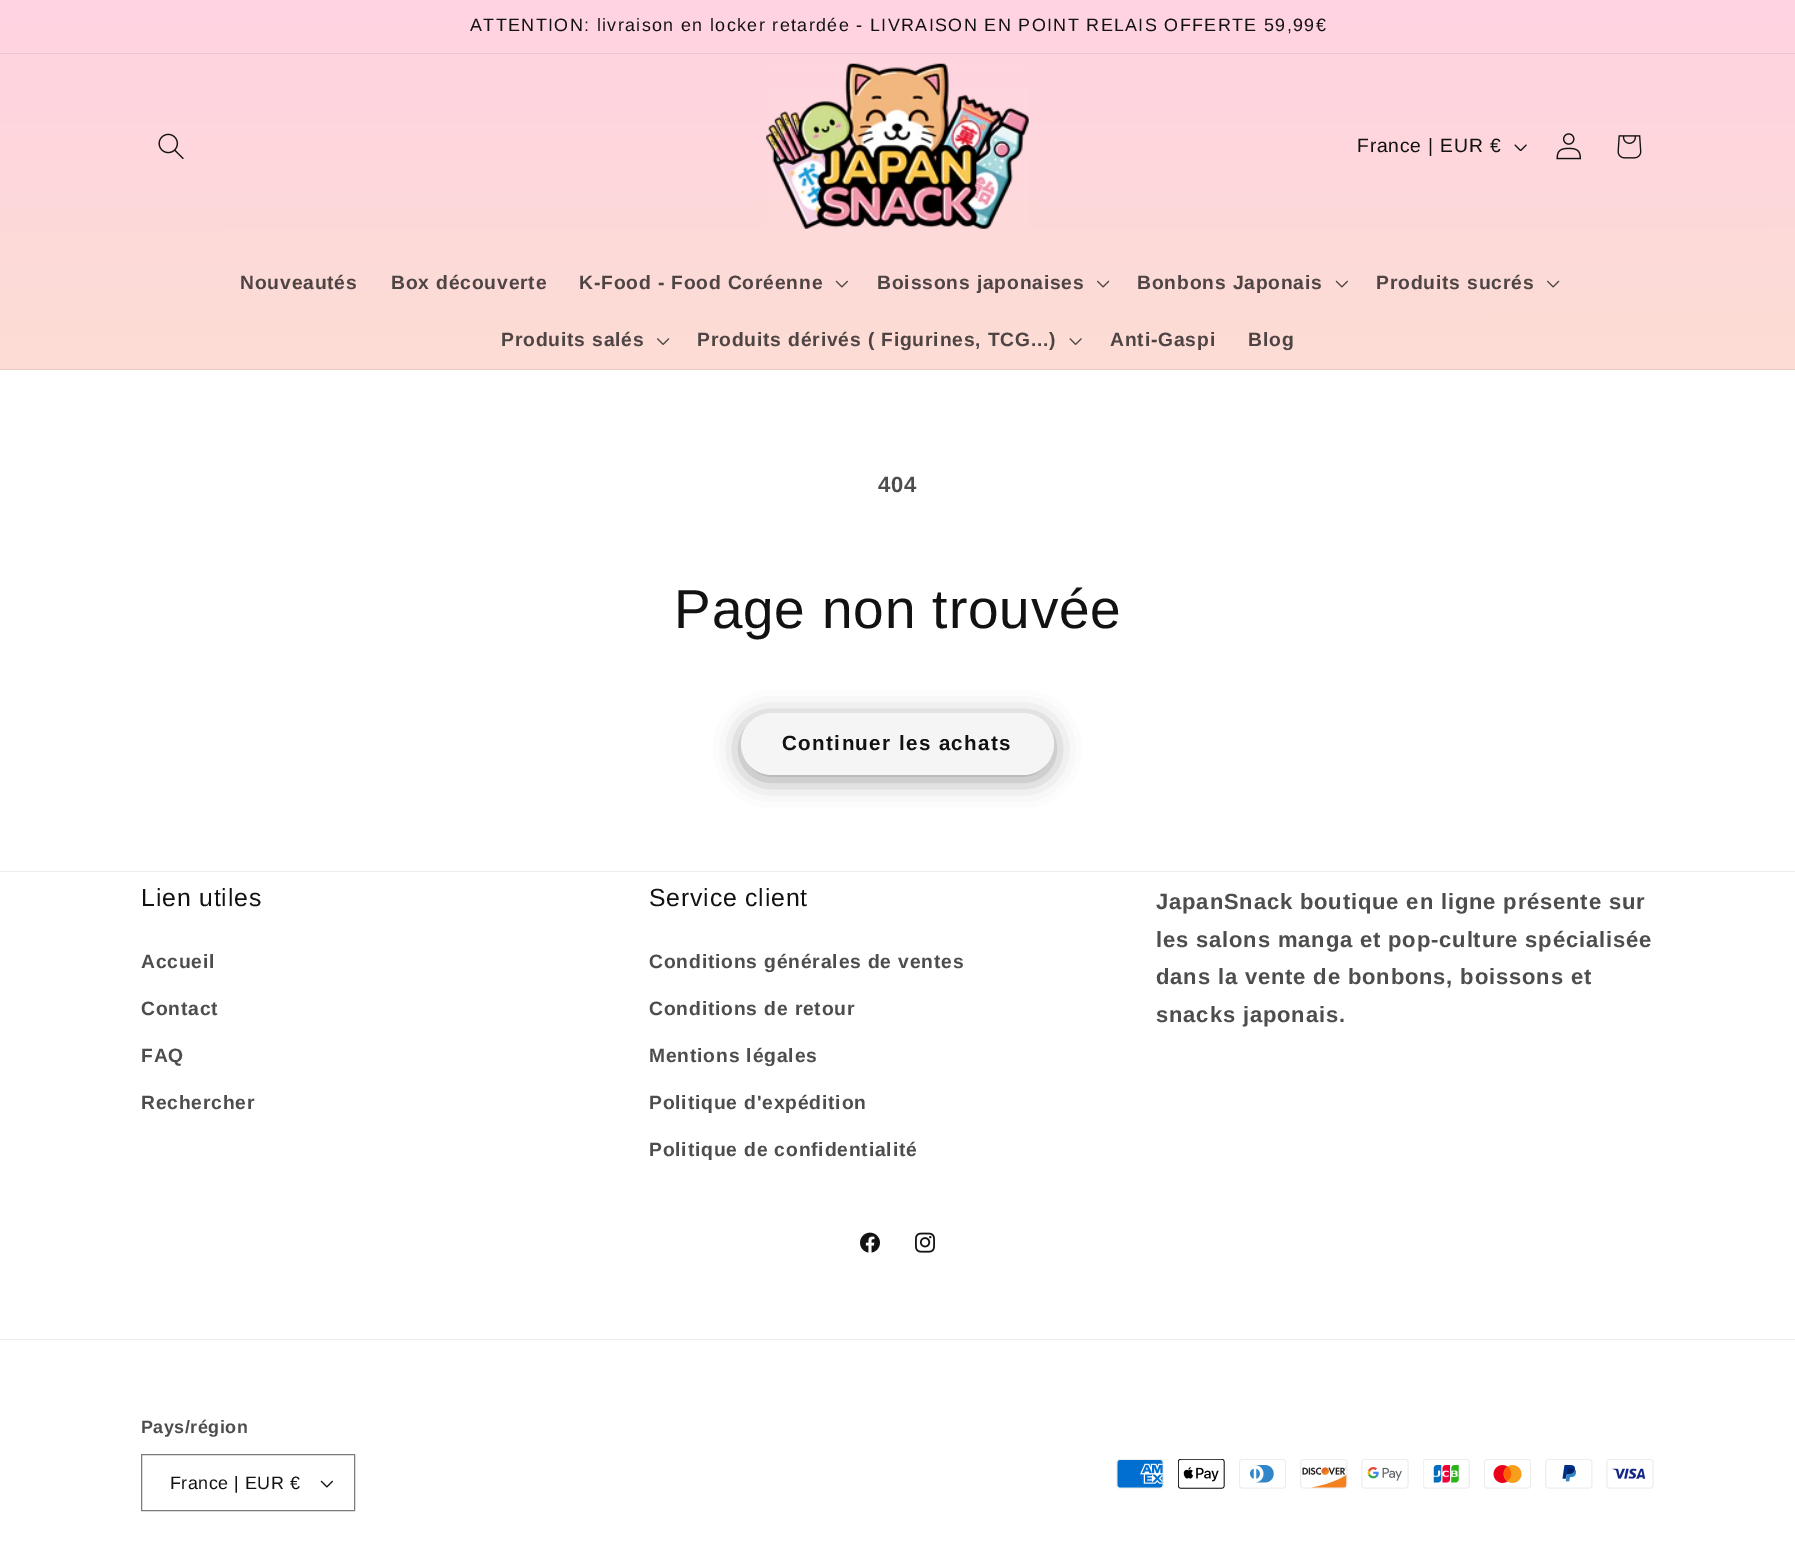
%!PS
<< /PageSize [1795 1550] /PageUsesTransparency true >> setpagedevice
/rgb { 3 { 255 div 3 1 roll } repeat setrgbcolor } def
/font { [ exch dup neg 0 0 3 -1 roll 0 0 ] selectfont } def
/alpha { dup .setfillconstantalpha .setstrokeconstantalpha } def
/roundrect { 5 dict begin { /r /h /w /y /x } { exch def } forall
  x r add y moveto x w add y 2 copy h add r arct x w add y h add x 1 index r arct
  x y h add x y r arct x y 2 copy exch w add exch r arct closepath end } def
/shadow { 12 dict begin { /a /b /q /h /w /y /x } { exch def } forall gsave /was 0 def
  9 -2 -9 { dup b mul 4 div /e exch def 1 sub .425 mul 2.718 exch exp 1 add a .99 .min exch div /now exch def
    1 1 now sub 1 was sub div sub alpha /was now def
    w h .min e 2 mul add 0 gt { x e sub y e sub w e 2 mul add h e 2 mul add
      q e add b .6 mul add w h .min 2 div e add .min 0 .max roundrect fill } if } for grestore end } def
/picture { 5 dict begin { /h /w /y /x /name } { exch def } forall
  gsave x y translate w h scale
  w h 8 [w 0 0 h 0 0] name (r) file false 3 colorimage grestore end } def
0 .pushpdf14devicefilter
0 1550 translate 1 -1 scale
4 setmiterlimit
255 255 255 rgb
0 0 1795 1550 rectfill
gsave 0 0 moveto 1795 0 rlineto 0 53 rlineto -1795 0 rlineto closepath clip newpath
<< /ShadingType 2 /ColorSpace /DeviceRGB /Coords [897 0 898 1550] /Extend [true true] /Function << /FunctionType 2 /Domain [0 1] /C0 [1 0.827 0.886] /C1 [0.957 1 0.659] /N 1 >> >> shfill grestore
236 197 208 rgb
0 53 1795 1 rectfill
gsave 0 54 moveto 1795 0 rlineto 0 315 rlineto -1795 0 rlineto closepath clip newpath
<< /ShadingType 2 /ColorSpace /DeviceRGB /Coords [897 0 898 1550] /Extend [true true] /Function << /FunctionType 2 /Domain [0 1] /C0 [1 0.827 0.886] /C1 [0.957 1 0.659] /N 1 >> >> shfill grestore
233 205 196 rgb
0 369 1795 1 rectfill
(img_01.rgb) 158 133 26 26 picture
(img_02.rgb) 766 63 263 166 picture
(img_03.rgb) 1514 144 13 7 picture
(img_04.rgb) 1556 133 26 27 picture
(img_05.rgb) 1617 135 25 24 picture
(img_06.rgb) 835 280 13 8 picture
(img_07.rgb) 1097 280 13 8 picture
(img_08.rgb) 1335 280 13 8 picture
(img_09.rgb) 1547 280 13 8 picture
(img_10.rgb) 657 338 13 7 picture
(img_11.rgb) 1069 338 13 7 picture
18 18 18 rgb
741 718 313 62 31 12.5 0.4 shadow
245 245 245 rgb
741 713 313 62 31 roundrect fill
236 236 236 rgb
0 871 1795 1 rectfill
(img_12.rgb) 860 1232 20 21 picture
(img_13.rgb) 915 1232 20 21 picture
0 1339 1795 1 rectfill
(img_14.rgb) 320 1480 13 8 picture
125 125 125 rgb
141.5 1454.5 213 56 rectstroke
(img_15.rgb) 1116 1459 48 30 picture
(img_16.rgb) 1178 1459 47 30 picture
(img_17.rgb) 1239 1459 47 30 picture
(img_18.rgb) 1300 1459 48 30 picture
(img_19.rgb) 1361 1459 48 30 picture
(img_20.rgb) 1423 1459 47 30 picture
(img_21.rgb) 1484 1459 47 30 picture
(img_22.rgb) 1545 1459 48 30 picture
(img_23.rgb) 1606 1459 48 30 picture
/LiberationSans-Regular 17.9 font
18 18 18 rgb
470 31 moveto 1.38 0 (ATTENTION: livraison en locker retardée - LIVRAISON EN POINT RELAIS OFFERTE 59,99€) ashow
/LiberationSans-Regular 19.25 font
1357 152 moveto 0.85 0 (France | EUR €) ashow
/LiberationSans-Bold 19.25 font
77 68 67 rgb
240 289 moveto 0.85 0 (Nouveautés) ashow
391 289 moveto 0.85 0 (Box découverte) ashow
579 289 moveto 0.85 0 (K-Food - Food Coréenne) ashow
877 289 moveto 0.85 0 (Boissons japonaises) ashow
1137 289 moveto 0.85 0 (Bonbons Japonais) ashow
1376 289 moveto 0.85 0 (Produits sucrés) ashow
501 346 moveto 0.85 0 (Produits salés) ashow
697 346 moveto 0.85 0 (Produits dérivés \( Figurines, TCG...\)) ashow
1110 346 moveto 0.85 0 (Anti-Gaspi) ashow
1248 346 moveto 0.85 0 (Blog) ashow
/LiberationSans-Bold 22 font
77 77 77 rgb
878 492 moveto 0.85 0 (404) ashow
/LiberationSans-Regular 55 font
18 18 18 rgb
674 628 moveto 0.85 0 (Page non trouvée) ashow
/LiberationSans-Bold 20.6 font
782 750 moveto 1.38 0 (Continuer les achats) ashow
/LiberationSans-Regular 24.75 font
141 906 moveto 0.85 0 (Lien utiles) ashow
/LiberationSans-Bold 19.25 font
77 77 77 rgb
141 968 moveto 0.85 0 (Accueil) ashow
141 1015 moveto 0.85 0 (Contact) ashow
141 1062 moveto 0.85 0 (FAQ) ashow
141 1109 moveto 0.85 0 (Rechercher) ashow
/LiberationSans-Regular 24.75 font
18 18 18 rgb
649 906 moveto 0.85 0 (Service client) ashow
/LiberationSans-Bold 19.25 font
77 77 77 rgb
649 968 moveto 0.85 0 (Conditions générales de ventes) ashow
649 1015 moveto 0.85 0 (Conditions de retour) ashow
649 1062 moveto 0.85 0 (Mentions légales) ashow
649 1109 moveto 0.85 0 (Politique d'expédition) ashow
649 1156 moveto 0.85 0 (Politique de confidentialité) ashow
/LiberationSans-Bold 22 font
1156 909 moveto 0.85 0 (JapanSnack boutique en ligne présente sur) ashow
1156 947 moveto 0.85 0 (les salons manga et pop-culture spécialisée) ashow
1156 984 moveto 0.85 0 (dans la vente de bonbons, boissons et) ashow
1156 1022 moveto 0.85 0 (snacks japonais.) ashow
/LiberationSans-Bold 17.9 font
141 1433 moveto 0.5 0 (Pays/région) ashow
/LiberationSans-Regular 17.9 font
18 18 18 rgb
170 1489 moveto 0.5 0 (France | EUR €) ashow
.poppdf14devicefilter showpage
